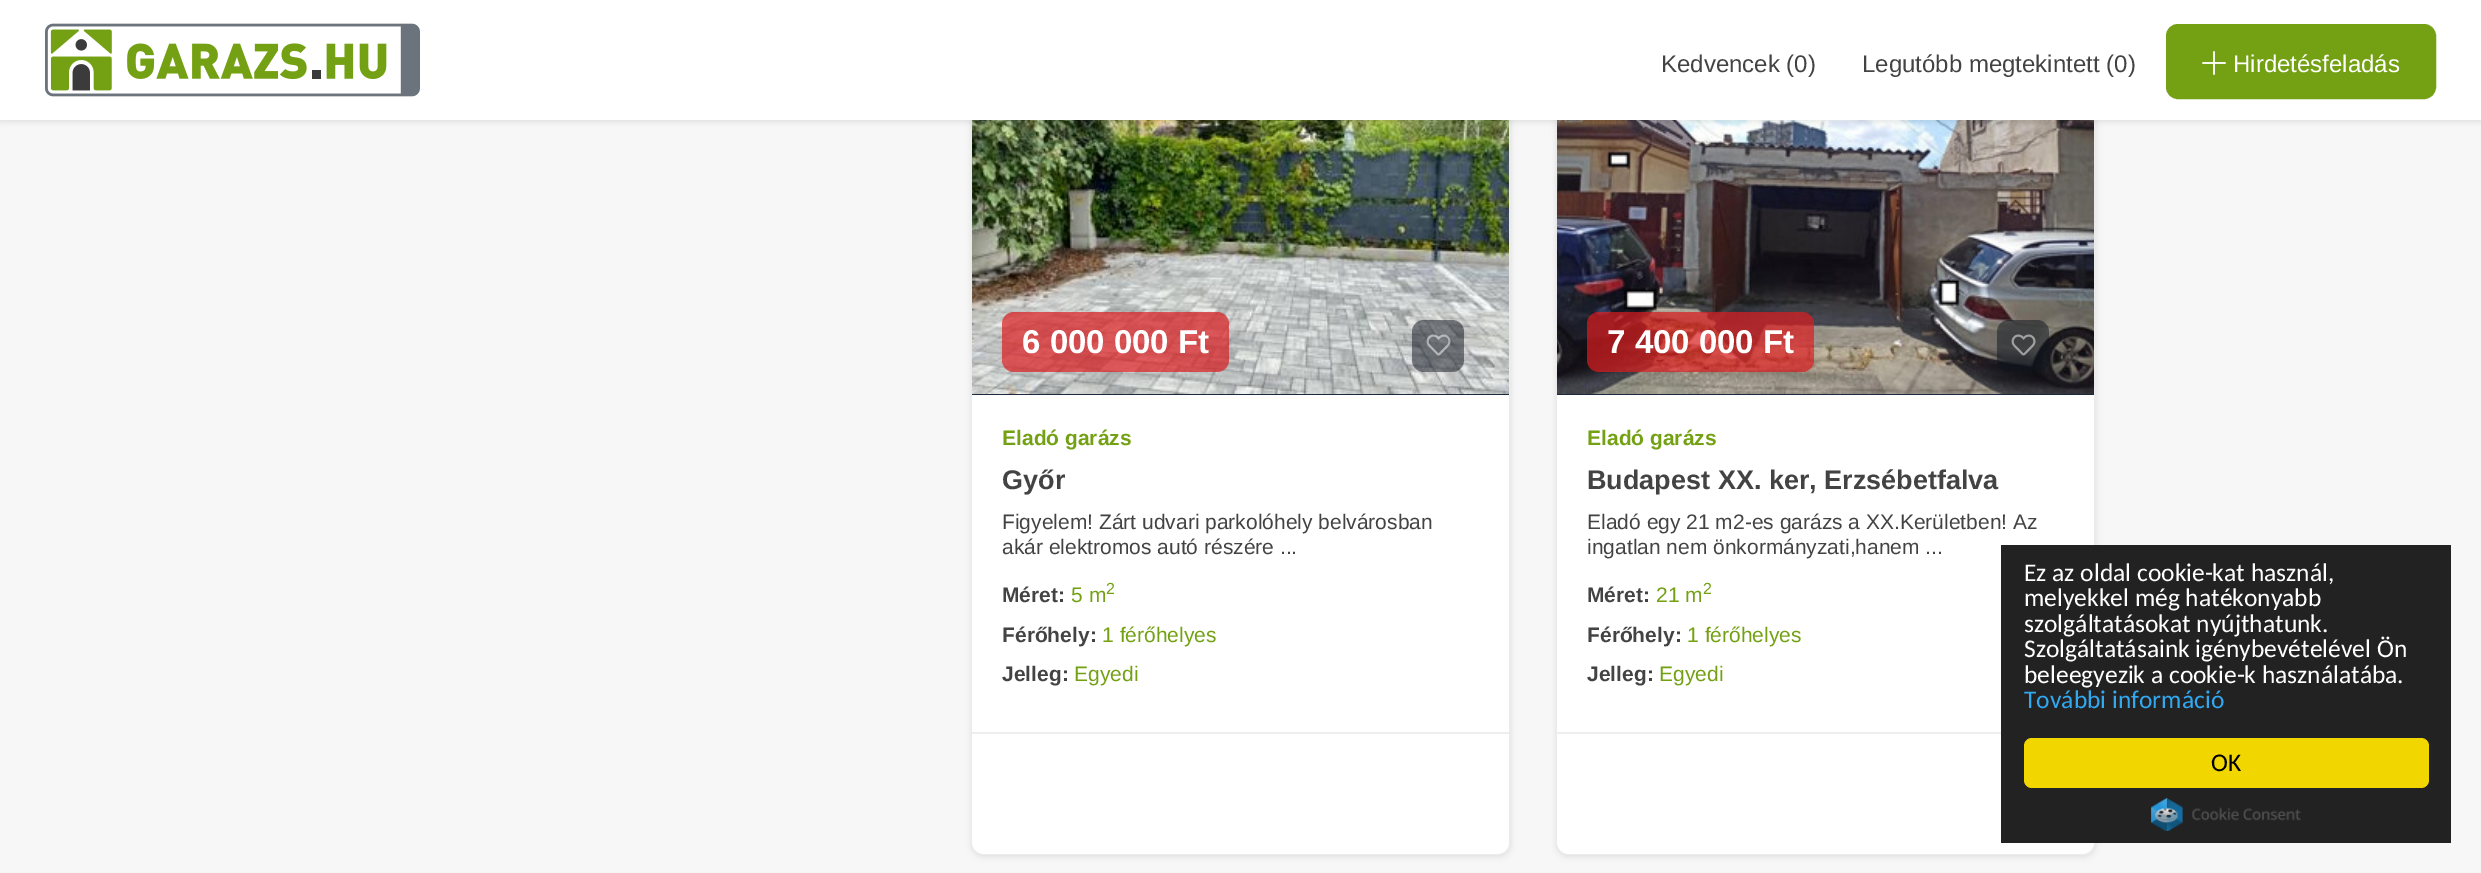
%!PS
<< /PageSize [2481 873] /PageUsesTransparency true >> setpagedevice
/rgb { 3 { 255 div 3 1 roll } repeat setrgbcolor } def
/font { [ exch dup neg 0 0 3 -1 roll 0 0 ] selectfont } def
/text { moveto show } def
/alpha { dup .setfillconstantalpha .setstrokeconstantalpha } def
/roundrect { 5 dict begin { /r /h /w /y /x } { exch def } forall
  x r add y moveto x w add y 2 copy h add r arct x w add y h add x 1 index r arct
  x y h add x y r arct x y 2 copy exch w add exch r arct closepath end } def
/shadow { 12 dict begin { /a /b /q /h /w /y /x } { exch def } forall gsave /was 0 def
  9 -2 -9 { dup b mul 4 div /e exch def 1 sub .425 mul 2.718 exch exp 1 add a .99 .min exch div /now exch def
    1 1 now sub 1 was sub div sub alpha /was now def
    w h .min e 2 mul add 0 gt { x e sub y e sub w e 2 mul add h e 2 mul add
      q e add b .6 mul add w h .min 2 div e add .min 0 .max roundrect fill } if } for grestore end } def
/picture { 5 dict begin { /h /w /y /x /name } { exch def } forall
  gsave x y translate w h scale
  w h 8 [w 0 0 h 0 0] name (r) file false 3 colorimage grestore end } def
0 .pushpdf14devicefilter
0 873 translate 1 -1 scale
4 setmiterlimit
247 247 247 rgb
0 0 2481 873 rectfill
0 0 0 rgb
971 38 540 819 12 3 0.09 shadow
255 255 255 rgb
972 37 538 817 11 roundrect gsave fill grestore
235 235 235 rgb
2 setlinewidth
stroke
(img_03.rgb) 972 120 537 274 picture
0 0 0 rgb
1556 38 540 819 12 3 0.09 shadow
255 255 255 rgb
1557 37 538 817 11 roundrect gsave fill grestore
235 235 235 rgb
stroke
(img_05.rgb) 1557 120 537 274 picture
0 0 0 rgb
0 2 2481 120 0 3 0.09 shadow
255 255 255 rgb
0 0 2481 120 rectfill
(img_01.rgb) 45 23 375 74 picture
116 161 19 rgb
2167.5 25.5 267 72 10.5 roundrect gsave fill grestore
3 setlinewidth
stroke
(img_02.rgb) 2202 51 24 24 picture
29 41 63 rgb
972 394 537 1 rectfill
0.7 alpha
219 28 31 rgb
1002 312 227 60 12 roundrect fill
0.5 alpha
15 21 31 rgb
1412 320 52 52 12 roundrect fill
1 alpha
(img_04.rgb) 1426 334 25 22 picture
gsave
972 38 537 816 11 roundrect clip newpath
255 255 255 rgb
972 395 moveto 537 0 rlineto 0 447 rlineto 0 6.5 -5.5 12 -12 12 rcurveto -513 0 rlineto -6.5 0 -12 -5.5 -12 -12 rcurveto closepath fill
grestore
238 238 238 rgb
972 732 537 2 rectfill
29 41 63 rgb
1557 394 537 1 rectfill
0.7 alpha
219 28 31 rgb
1587 312 227 60 12 roundrect fill
0.5 alpha
15 21 31 rgb
1997 320 52 52 12 roundrect fill
1 alpha
(img_06.rgb) 2011 334 25 22 picture
gsave
1557 38 537 816 11 roundrect clip newpath
255 255 255 rgb
1557 395 moveto 537 0 rlineto 0 447 rlineto 0 6.5 -5.5 12 -12 12 rcurveto -513 0 rlineto -6.5 0 -12 -5.5 -12 -12 rcurveto closepath fill
grestore
238 238 238 rgb
1557 732 444 2 rectfill
34 34 34 rgb
2001 545 450 298 rectfill
241 214 0 rgb
2024 738 405 50 8 roundrect fill
(img_07.rgb) 2151 798 150 33 picture
/LiberationSans-Regular 24 font
67 67 67 rgb
(Kedvencek \(0\)) 1661 72 text
(Legutóbb megtekintett \(0\)) 1862 72 text
255 255 255 rgb
(Hirdetésfeladás) 2233 72 text
/LiberationSans-Bold 33 font
(6 000 000 Ft) 1022 353 text
/LiberationSans-Bold 21 font
116 161 19 rgb
(Eladó garázs) 1002 445 text
/LiberationSans-Bold 27 font
67 67 67 rgb
(Győr) 1002 489 text
/LiberationSans-Regular 21 font
(Figyelem! Zárt udvari parkolóhely belvárosban) 1002 529 text
(akár elektromos autó részére ...) 1002 554 text
/LiberationSans-Bold 21 font
(Méret:) 1002 602 text
/LiberationSans-Regular 21 font
116 161 19 rgb
(5 m) 1071 602 text
/LiberationSans-Regular 16 font
(2) 1106 594 text
/LiberationSans-Bold 21 font
67 67 67 rgb
(Férőhely:) 1002 642 text
/LiberationSans-Regular 21 font
116 161 19 rgb
(1 férőhelyes) 1102 642 text
/LiberationSans-Bold 21 font
67 67 67 rgb
(Jelleg:) 1002 681 text
/LiberationSans-Regular 21 font
116 161 19 rgb
(Egyedi) 1074 681 text
/LiberationSans-Bold 33 font
255 255 255 rgb
(7 400 000 Ft) 1607 353 text
/LiberationSans-Bold 21 font
116 161 19 rgb
(Eladó garázs) 1587 445 text
/LiberationSans-Bold 27 font
67 67 67 rgb
(Budapest XX. ker, Erzsébetfalva) 1587 489 text
/LiberationSans-Regular 21 font
(Eladó egy 21 m2-es garázs a XX.Kerületben! Az) 1587 529 text
(ingatlan nem önkormányzati,hanem ...) 1587 554 text
/LiberationSans-Bold 21 font
(Méret:) 1587 602 text
/LiberationSans-Regular 21 font
116 161 19 rgb
(21 m) 1656 602 text
/LiberationSans-Regular 16 font
(2) 1703 594 text
/LiberationSans-Bold 21 font
67 67 67 rgb
(Férőhely:) 1587 642 text
/LiberationSans-Regular 21 font
116 161 19 rgb
(1 férőhelyes) 1687 642 text
/LiberationSans-Bold 21 font
67 67 67 rgb
(Jelleg:) 1587 681 text
/LiberationSans-Regular 21 font
116 161 19 rgb
(Egyedi) 1659 681 text
/Carlito-Regular 25.5 font
255 255 255 rgb
(Ez az oldal cookie-kat használ,) 2024 581 text
(melyekkel még hatékonyabb) 2024 606 text
(szolgáltatásokat nyújthatunk.) 2024 632 text
(Szolgáltatásaink igénybevételével Ön) 2024 657 text
(beleegyezik a cookie-k használatába.) 2024 683 text
49 168 240 rgb
(További információ) 2024 708 text
0 0 0 rgb
(OK) 2211 771 text
.poppdf14devicefilter showpage
